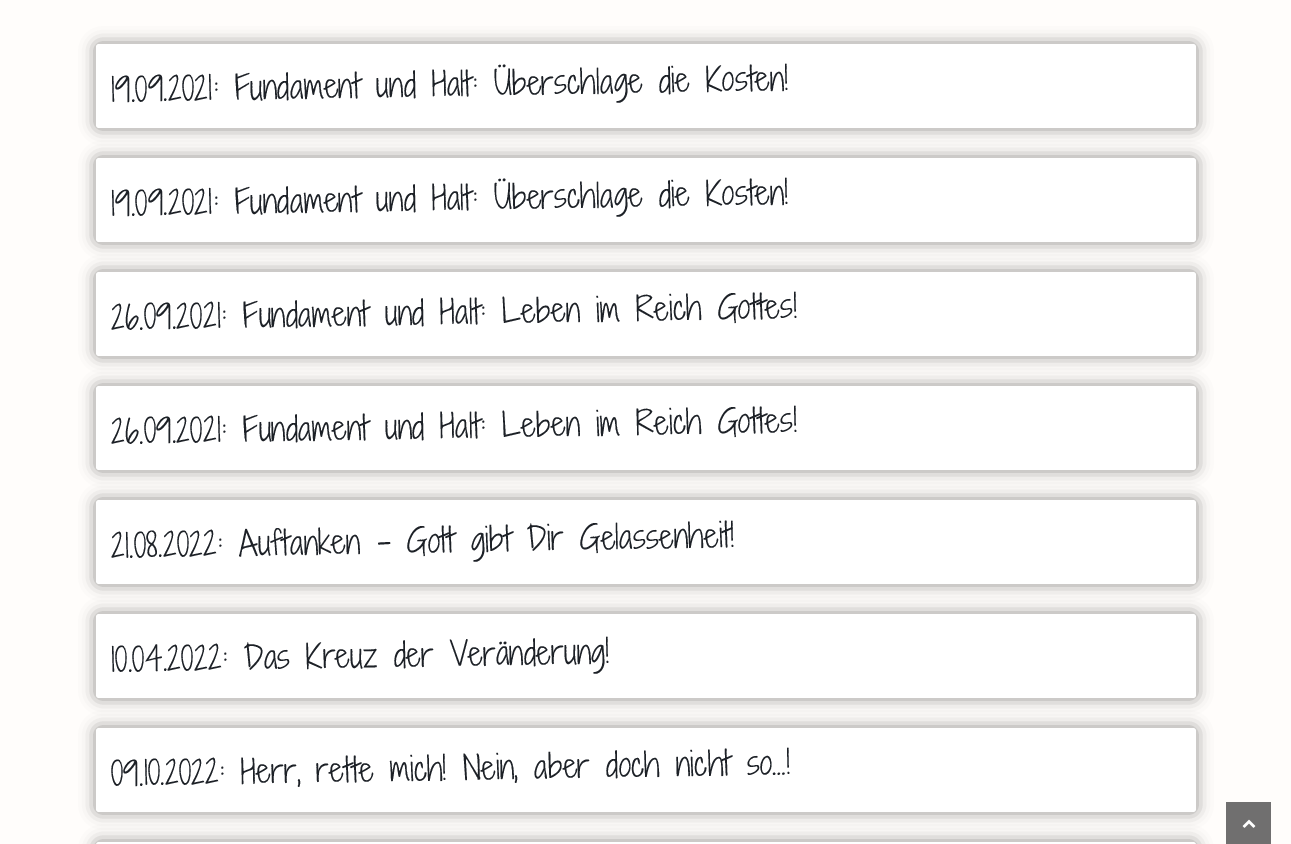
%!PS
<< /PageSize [1291 844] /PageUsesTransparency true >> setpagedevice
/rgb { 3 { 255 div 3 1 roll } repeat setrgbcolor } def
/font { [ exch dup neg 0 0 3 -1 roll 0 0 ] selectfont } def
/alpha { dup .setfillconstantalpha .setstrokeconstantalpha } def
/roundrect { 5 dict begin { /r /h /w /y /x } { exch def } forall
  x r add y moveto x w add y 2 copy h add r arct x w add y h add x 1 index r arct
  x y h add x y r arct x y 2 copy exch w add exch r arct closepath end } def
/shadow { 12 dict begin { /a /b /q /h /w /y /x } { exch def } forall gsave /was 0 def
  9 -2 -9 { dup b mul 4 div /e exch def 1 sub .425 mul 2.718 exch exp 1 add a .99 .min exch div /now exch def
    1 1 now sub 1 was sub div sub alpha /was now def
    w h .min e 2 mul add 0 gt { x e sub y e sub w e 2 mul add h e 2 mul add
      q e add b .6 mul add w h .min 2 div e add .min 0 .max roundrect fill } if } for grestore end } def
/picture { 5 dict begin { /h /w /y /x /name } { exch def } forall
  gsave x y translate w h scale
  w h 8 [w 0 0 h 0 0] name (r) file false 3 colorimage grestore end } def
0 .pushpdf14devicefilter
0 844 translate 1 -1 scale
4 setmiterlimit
255 253 251 rgb
0 0 1291 844 rectfill
0 0 0 rgb
95 43 1102 86 4 7.5 0.4 shadow
255 255 255 rgb
96 44 1100 84 3 roundrect fill
0 0 0 rgb
95 157 1102 86 4 7.5 0.4 shadow
255 255 255 rgb
96 158 1100 84 3 roundrect fill
0 0 0 rgb
95 271 1102 86 4 7.5 0.4 shadow
255 255 255 rgb
96 272 1100 84 3 roundrect fill
0 0 0 rgb
95 385 1102 86 4 7.5 0.4 shadow
255 255 255 rgb
96 386 1100 84 3 roundrect fill
0 0 0 rgb
95 499 1102 86 4 7.5 0.4 shadow
255 255 255 rgb
96 500 1100 84 3 roundrect fill
0 0 0 rgb
95 613 1102 86 4 7.5 0.4 shadow
255 255 255 rgb
96 614 1100 84 3 roundrect fill
0 0 0 rgb
95 727 1102 86 4 7.5 0.4 shadow
255 255 255 rgb
96 728 1100 84 3 roundrect fill
0 0 0 rgb
95 841 1102 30 4 7.5 0.4 shadow
255 255 255 rgb
96 842 1100 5 3 roundrect fill
112 111 111 rgb
1226 802 45 42 rectfill
(img_01.rgb) 1242 819 14 9 picture
/ShadowsIntoLightTwo-Light 32 font
29 33 39 rgb
gsave 111 102 translate -1 rotate 0 0 moveto (19.09.2021: Fundament und Halt: Überschlage die Kosten!) show grestore
gsave 111 216 translate -1 rotate 0 0 moveto (19.09.2021: Fundament und Halt: Überschlage die Kosten!) show grestore
gsave 111 330 translate -1 rotate 0 0 moveto (26.09.2021: Fundament und Halt: Leben im Reich Gottes!) show grestore
gsave 111 444 translate -1 rotate 0 0 moveto (26.09.2021: Fundament und Halt: Leben im Reich Gottes!) show grestore
gsave 111 558 translate -1 rotate 0 0 moveto (21.08.2022: Auftanken - Gott gibt Dir Gelassenheit!) show grestore
gsave 111 672 translate -1 rotate 0 0 moveto (10.04.2022: Das Kreuz der Veränderung!) show grestore
gsave 111 786 translate -1 rotate 0 0 moveto (09.10.2022: Herr, rette mich! Nein, aber doch nicht so…!) show grestore
.poppdf14devicefilter showpage
